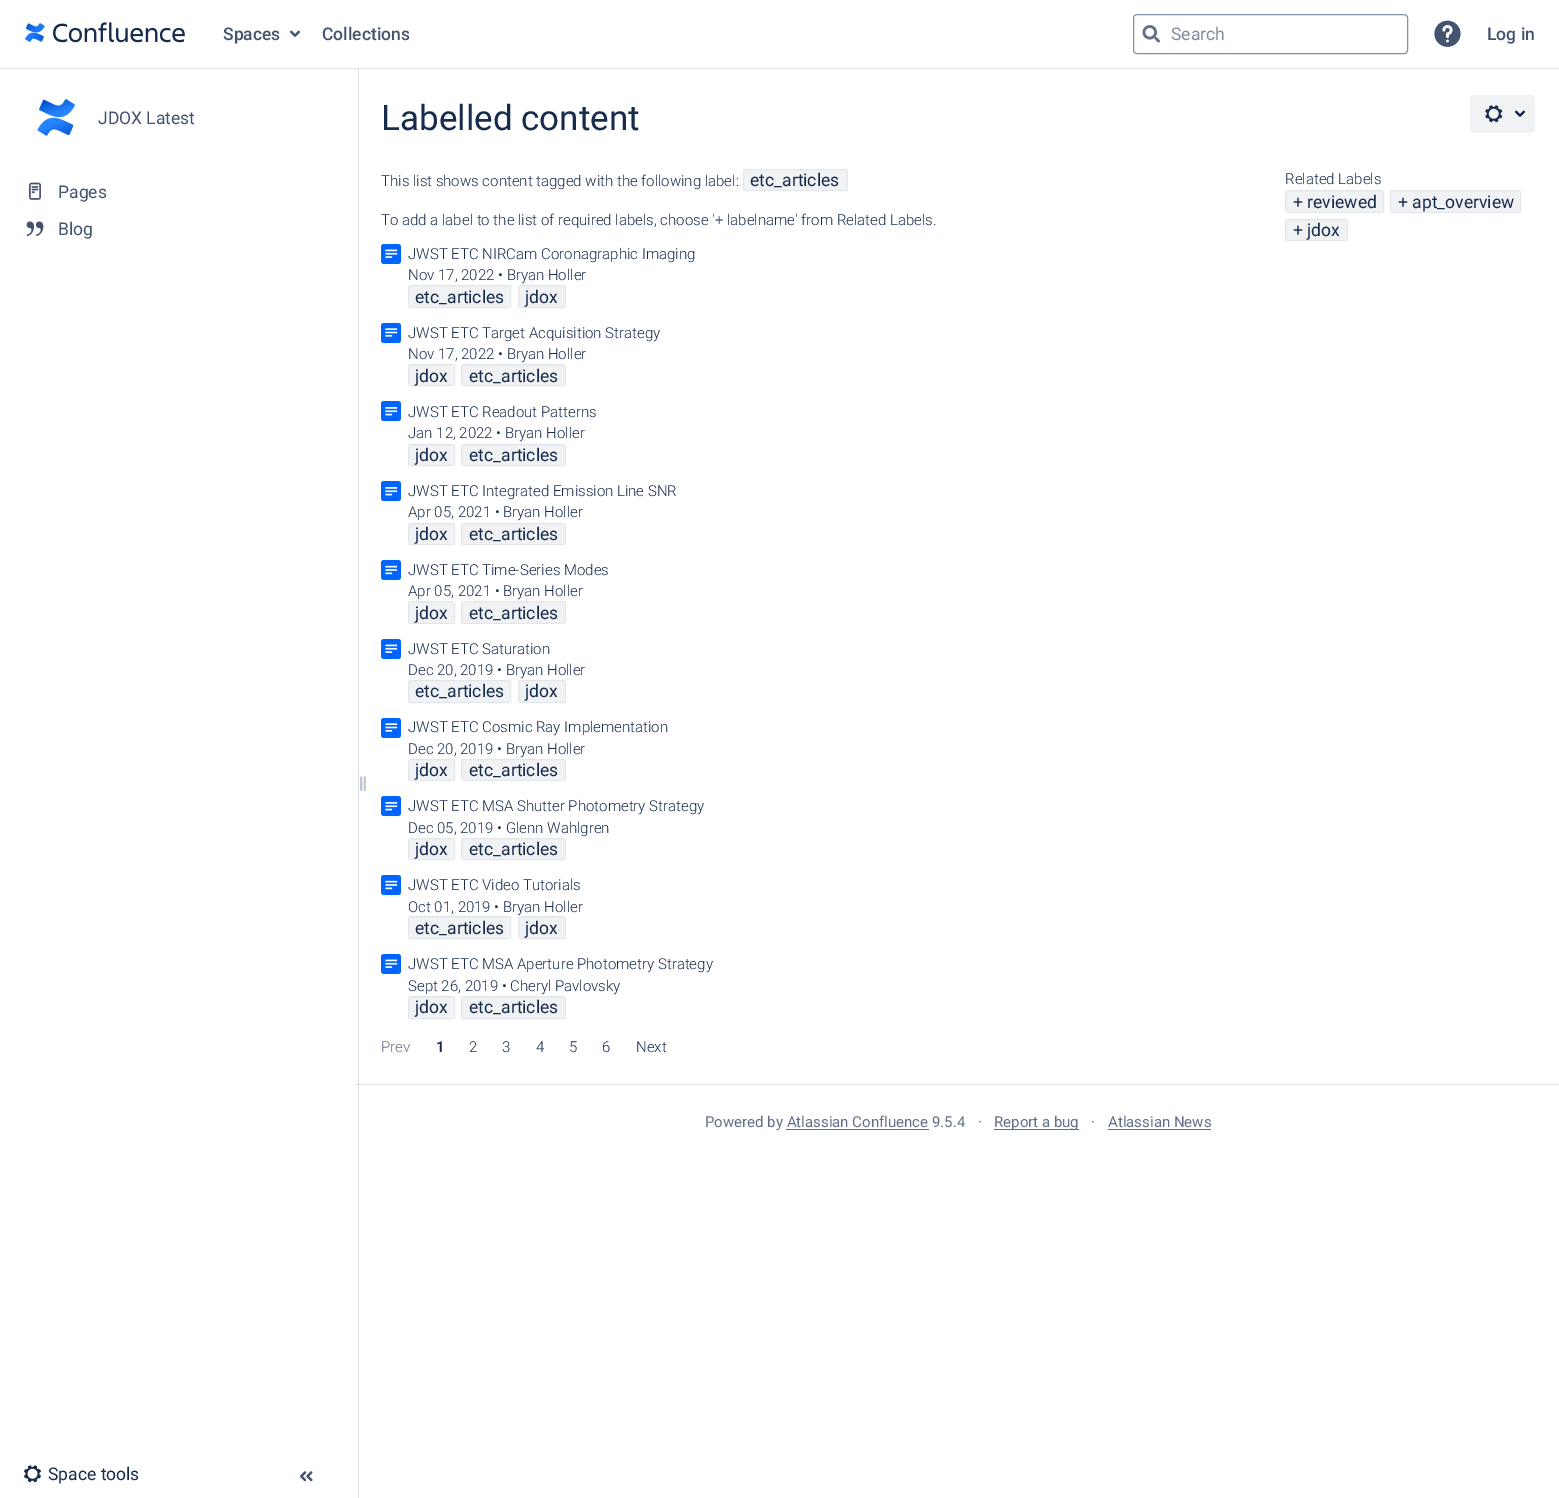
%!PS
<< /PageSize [1559 1498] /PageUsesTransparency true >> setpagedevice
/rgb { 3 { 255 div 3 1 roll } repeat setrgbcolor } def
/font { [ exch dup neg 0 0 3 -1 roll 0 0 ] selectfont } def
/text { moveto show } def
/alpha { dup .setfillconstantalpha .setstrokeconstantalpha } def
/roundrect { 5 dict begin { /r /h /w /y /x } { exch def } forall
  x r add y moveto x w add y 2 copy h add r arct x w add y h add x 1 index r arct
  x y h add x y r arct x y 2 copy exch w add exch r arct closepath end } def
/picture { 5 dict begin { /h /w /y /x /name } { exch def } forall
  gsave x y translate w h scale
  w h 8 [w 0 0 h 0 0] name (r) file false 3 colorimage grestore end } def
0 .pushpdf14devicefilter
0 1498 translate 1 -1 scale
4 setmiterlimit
255 255 255 rgb
0 0 1559 1498 rectfill
221 223 229 rgb
358 69 1 1429 rectfill
221 224 229 rgb
0 68 1559 1 rectfill
(img_01.rgb) 25 22 160 21 picture
(img_02.rgb) 290 30 10 7 picture
133 144 162 rgb
1133.5 14.5 274 39 3.5 roundrect stroke
(img_03.rgb) 1142 25 18 18 picture
(img_04.rgb) 1434 20 27 27 picture
(img_05.rgb) 37 99 38 37 picture
(img_06.rgb) 29 182 12 18 picture
(img_07.rgb) 26 221 18 15 picture
(img_08.rgb) 360 776 6 15 picture
(img_09.rgb) 24 1465 17 18 picture
(img_10.rgb) 300 1471 13 11 picture
221 224 229 rgb
356 1084 1203 1 rectfill
191 197 206 rgb
358 1084 1 1 rectfill
240 242 244 rgb
1470 95 65 38 4 roundrect fill
(img_11.rgb) 1485 105 18 18 picture
(img_12.rgb) 1515 110 10 7 picture
743 169 105 22 4 roundrect fill
0.06 alpha
9 30 66 rgb
743.5 169.5 104 21 rectstroke
1 alpha
(img_13.rgb) 381 244 20 20 picture
240 242 244 rgb
408 285 103 23 4 roundrect fill
0.06 alpha
9 30 66 rgb
408.5 285.5 102 22 rectstroke
1 alpha
240 242 244 rgb
518 285 48 23 4 roundrect fill
0.06 alpha
9 30 66 rgb
518.5 285.5 47 22 rectstroke
1 alpha
(img_14.rgb) 381 323 20 20 picture
240 242 244 rgb
408 364 47 22 4 roundrect fill
0.06 alpha
9 30 66 rgb
408.5 364.5 46 21 rectstroke
1 alpha
240 242 244 rgb
461 364 105 22 4 roundrect fill
0.06 alpha
9 30 66 rgb
461.5 364.5 104 21 rectstroke
1 alpha
(img_15.rgb) 381 401 20 20 picture
240 242 244 rgb
408 444 47 22 4 roundrect fill
0.06 alpha
9 30 66 rgb
408.5 444.5 46 21 rectstroke
1 alpha
240 242 244 rgb
461 444 105 22 4 roundrect fill
0.06 alpha
9 30 66 rgb
461.5 444.5 104 21 rectstroke
1 alpha
(img_15.rgb) 381 481 20 20 picture
240 242 244 rgb
408 523 47 22 4 roundrect fill
0.06 alpha
9 30 66 rgb
408.5 523.5 46 21 rectstroke
1 alpha
240 242 244 rgb
461 523 105 22 4 roundrect fill
0.06 alpha
9 30 66 rgb
461.5 523.5 104 21 rectstroke
1 alpha
(img_16.rgb) 381 560 20 20 picture
240 242 244 rgb
408 601 47 23 4 roundrect fill
0.06 alpha
9 30 66 rgb
408.5 601.5 46 22 rectstroke
1 alpha
240 242 244 rgb
461 601 105 23 4 roundrect fill
0.06 alpha
9 30 66 rgb
461.5 601.5 104 22 rectstroke
1 alpha
(img_13.rgb) 381 639 20 20 picture
240 242 244 rgb
408 680 103 23 4 roundrect fill
0.06 alpha
9 30 66 rgb
408.5 680.5 102 22 rectstroke
1 alpha
240 242 244 rgb
518 680 48 23 4 roundrect fill
0.06 alpha
9 30 66 rgb
518.5 680.5 47 22 rectstroke
1 alpha
(img_14.rgb) 381 718 20 20 picture
240 242 244 rgb
408 759 47 22 4 roundrect fill
0.06 alpha
9 30 66 rgb
408.5 759.5 46 21 rectstroke
1 alpha
240 242 244 rgb
461 759 105 22 4 roundrect fill
0.06 alpha
9 30 66 rgb
461.5 759.5 104 21 rectstroke
1 alpha
(img_15.rgb) 381 796 20 20 picture
240 242 244 rgb
408 838 47 22 4 roundrect fill
0.06 alpha
9 30 66 rgb
408.5 838.5 46 21 rectstroke
1 alpha
240 242 244 rgb
461 838 105 22 4 roundrect fill
0.06 alpha
9 30 66 rgb
461.5 838.5 104 21 rectstroke
1 alpha
(img_16.rgb) 381 875 20 20 picture
240 242 244 rgb
408 916 103 23 4 roundrect fill
0.06 alpha
9 30 66 rgb
408.5 916.5 102 22 rectstroke
1 alpha
240 242 244 rgb
518 916 48 23 4 roundrect fill
0.06 alpha
9 30 66 rgb
518.5 916.5 47 22 rectstroke
1 alpha
(img_13.rgb) 381 954 20 20 picture
240 242 244 rgb
408 996 47 23 4 roundrect fill
0.06 alpha
9 30 66 rgb
408.5 996.5 46 22 rectstroke
1 alpha
240 242 244 rgb
461 996 105 23 4 roundrect fill
0.06 alpha
9 30 66 rgb
461.5 996.5 104 22 rectstroke
1 alpha
240 242 244 rgb
1285 190 99 23 4 roundrect fill
0.06 alpha
9 30 66 rgb
1285.5 190.5 98 22 rectstroke
1 alpha
240 242 244 rgb
1390 190 131 23 4 roundrect fill
0.06 alpha
9 30 66 rgb
1390.5 190.5 130 22 rectstroke
1 alpha
240 242 244 rgb
1285 219 63 22 4 roundrect fill
0.06 alpha
9 30 66 rgb
1285.5 219.5 62 21 rectstroke
1 alpha
98 111 134 rgb
786 1129 143 1 rectfill
994 1129 85 1 rectfill
1108 1129 103 1 rectfill
/Roboto-Medium 17.5 font
68 84 111 rgb
(Spaces) 223 40 text
(Collections) 322 40 text
/Roboto-Regular 17.5 font
129 140 158 rgb
(Search) 1171 40 text
/Roboto-Medium 17.5 font
68 84 111 rgb
(Log in) 1487 40 text
/Roboto-Regular 17.5 font
(JDOX Latest) 98 124 text
(Pages) 58 198 text
(Blog) 58 235 text
23 43 77 rgb
(Space tools) 48 1480 text
/Roboto-Regular 35 font
(Labelled content) 381 130 text
/Roboto-Light 15 font
(This list shows content tagged with the following label:) 381 186 text
/Roboto-Regular 17.5 font
(etc_articles) 750 186 text
/Roboto-Light 15 font
(To add a label to the list of required labels, choose '+ labelname' from Related Labels.) 381 225 text
(JWST ETC NIRCam Coronagraphic Imaging) 408 259 text
(Nov 17, 2022 • Bryan Holler) 408 280 text
/Roboto-Regular 17.5 font
(etc_articles) 415 303 text
(jdox) 525 303 text
/Roboto-Light 15 font
(JWST ETC Target Acquisition Strategy) 408 338 text
(Nov 17, 2022 • Bryan Holler) 408 359 text
/Roboto-Regular 17.5 font
(jdox) 415 382 text
(etc_articles) 469 382 text
/Roboto-Light 15 font
(JWST ETC Readout Patterns) 408 417 text
(Jan 12, 2022 • Bryan Holler) 408 438 text
/Roboto-Regular 17.5 font
(jdox) 415 461 text
(etc_articles) 469 461 text
/Roboto-Light 15 font
(JWST ETC Integrated Emission Line SNR) 408 496 text
(Apr 05, 2021 • Bryan Holler) 408 517 text
/Roboto-Regular 17.5 font
(jdox) 415 540 text
(etc_articles) 469 540 text
/Roboto-Light 15 font
(JWST ETC Time-Series Modes) 408 575 text
(Apr 05, 2021 • Bryan Holler) 408 596 text
/Roboto-Regular 17.5 font
(jdox) 415 619 text
(etc_articles) 469 619 text
/Roboto-Light 15 font
(JWST ETC Saturation) 408 654 text
(Dec 20, 2019 • Bryan Holler) 408 675 text
/Roboto-Regular 17.5 font
(etc_articles) 415 697 text
(jdox) 525 697 text
/Roboto-Light 15 font
(JWST ETC Cosmic Ray Implementation) 408 732 text
(Dec 20, 2019 • Bryan Holler) 408 754 text
/Roboto-Regular 17.5 font
(jdox) 415 776 text
(etc_articles) 469 776 text
/Roboto-Light 15 font
(JWST ETC MSA Shutter Photometry Strategy) 408 811 text
(Dec 05, 2019 • Glenn Wahlgren) 408 833 text
/Roboto-Regular 17.5 font
(jdox) 415 855 text
(etc_articles) 469 855 text
/Roboto-Light 15 font
(JWST ETC Video Tutorials) 408 890 text
(Oct 01, 2019 • Bryan Holler) 408 912 text
/Roboto-Regular 17.5 font
(etc_articles) 415 934 text
(jdox) 525 934 text
/Roboto-Light 15 font
(JWST ETC MSA Aperture Photometry Strategy) 408 969 text
(Sept 26, 2019 • Cheryl Pavlovsky) 408 991 text
/Roboto-Regular 17.5 font
(jdox) 415 1013 text
(etc_articles) 469 1013 text
/Roboto-Light 15 font
98 111 134 rgb
(Prev) 381 1052 text
/Roboto-SemiBold 15 font
23 43 77 rgb
(1) 436 1052 text
/Roboto-Light 15 font
(2) 469 1052 text
(3) 502 1052 text
(4) 536 1052 text
(5) 569 1052 text
(6) 602 1052 text
(Next) 636 1052 text
(Related Labels) 1285 184 text
/Roboto-Regular 17.5 font
(+ reviewed) 1293 208 text
(+ apt_overview) 1398 208 text
(+ jdox) 1293 236 text
/Roboto-Regular 15 font
98 111 134 rgb
(Powered by Atlassian Confluence 9.5.4) 705 1127 text
(·) 978 1127 text
(Report a bug) 994 1127 text
(·) 1091 1127 text
(Atlassian News) 1108 1127 text
.poppdf14devicefilter showpage
